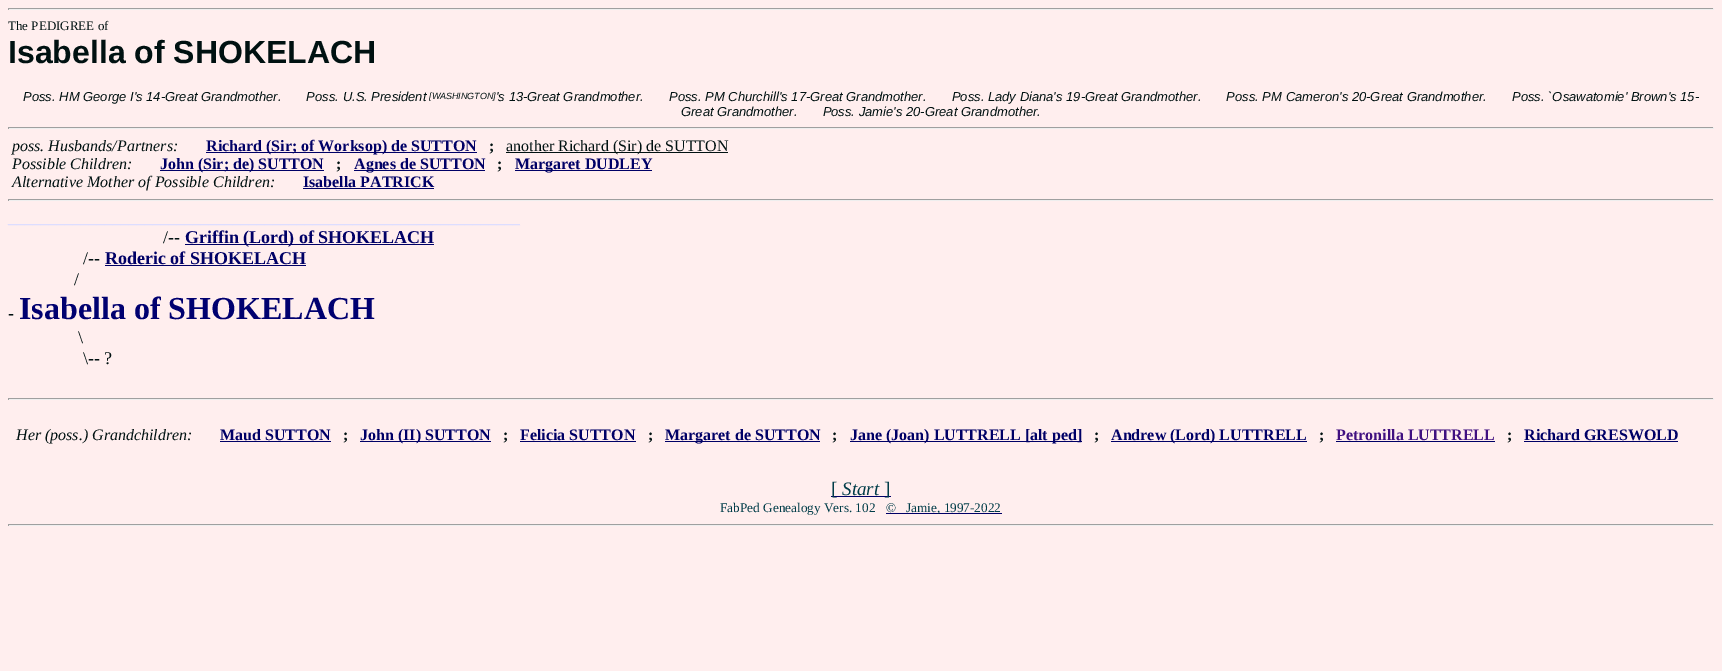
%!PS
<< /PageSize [1722 671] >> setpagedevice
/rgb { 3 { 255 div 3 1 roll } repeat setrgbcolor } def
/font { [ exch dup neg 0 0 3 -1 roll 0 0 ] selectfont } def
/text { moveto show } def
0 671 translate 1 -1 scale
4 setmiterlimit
255 238 238 rgb
0 0 1722 671 rectfill
159 159 159 rgb
8 8 1706 1 rectfill
238 238 238 rgb
1713 8 1 2 rectfill
8 9 1706 1 rectfill
159 159 159 rgb
8 8 1 2 rectfill
8 127 1706 1 rectfill
238 238 238 rgb
1713 127 1 2 rectfill
8 128 1706 1 rectfill
159 159 159 rgb
8 127 1 2 rectfill
0 0 102 rgb
206 152 271 1 rectfill
0 17 17 rgb
506 152 222 1 rectfill
0 0 102 rgb
160 170 164 1 rectfill
354 170 131 1 rectfill
515 170 137 1 rectfill
303 188 131 1 rectfill
159 159 159 rgb
8 199 1706 1 rectfill
238 238 238 rgb
1713 199 1 2 rectfill
8 200 1706 1 rectfill
159 159 159 rgb
8 199 1 2 rectfill
0 0 102 rgb
185 244 249 1 rectfill
105 265 201 1 rectfill
159 159 159 rgb
8 398 1706 1 rectfill
238 238 238 rgb
1713 398 1 2 rectfill
8 399 1706 1 rectfill
159 159 159 rgb
8 398 1 2 rectfill
0 0 102 rgb
220 441 111 1 rectfill
360 441 131 1 rectfill
520 441 116 1 rectfill
665 441 155 1 rectfill
850 441 232 1 rectfill
1111 441 196 1 rectfill
1336 441 159 1 rectfill
1524 441 154 1 rectfill
831 496 60 1 rectfill
886 513 116 1 rectfill
159 159 159 rgb
8 524 1706 1 rectfill
238 238 238 rgb
1713 524 1 2 rectfill
8 525 1706 1 rectfill
159 159 159 rgb
8 524 1 2 rectfill
/LiberationSerif-Regular 13 font
0 17 17 rgb
(The PEDIGREE of) 8 30 text
/LiberationSans-Bold 32 font
(Isabella of SHOKELACH) 8 63 text
/LiberationSans-Italic 13 font
(Poss. HM George I's 14-Great Grandmother.       Poss. U.S. President) 23 101 text
/LiberationSans-Italic 9 font
([WASHINGTON]) 429 99 text
/LiberationSans-Italic 13 font
('s 13-Great Grandmother.       Poss. PM Churchill's 17-Great Grandmother.       Poss. Lady Diana's 19-Great Grandmother.       Poss. PM Cameron's 20-Great Grandmother.       Poss. `Osawatomie' Brown's 15-) 496 101 text
(Great Grandmother.       Poss. Jamie's 20-Great Grandmother.) 681 116 text
/LiberationSerif-Italic 16 font
(poss. Husbands/Partners:) 12 151 text
/LiberationSerif-Bold 16 font
0 0 102 rgb
(Richard \(Sir; of Worksop\) de SUTTON) 206 151 text
0 17 17 rgb
(;) 489 151 text
/LiberationSerif-Regular 16 font
(another Richard \(Sir\) de SUTTON) 506 151 text
/LiberationSerif-Italic 16 font
(Possible Children:) 12 169 text
/LiberationSerif-Bold 16 font
0 0 102 rgb
(John \(Sir; de\) SUTTON) 160 169 text
0 17 17 rgb
(;) 336 169 text
0 0 102 rgb
(Agnes de SUTTON) 354 169 text
0 17 17 rgb
(;) 497 169 text
0 0 102 rgb
(Margaret DUDLEY) 515 169 text
/LiberationSerif-Italic 16 font
0 17 17 rgb
(Alternative Mother of Possible Children:) 12 187 text
/LiberationSerif-Bold 16 font
0 0 102 rgb
(Isabella PATRICK) 303 187 text
221 221 255 rgb
(________________________________________________________________) 8 223 text
/LiberationSerif-Regular 18 font
0 17 17 rgb
(/--) 163 243 text
/LiberationSerif-Bold 18 font
0 0 102 rgb
(Griffin \(Lord\) of SHOKELACH) 185 243 text
/LiberationSerif-Regular 18 font
0 17 17 rgb
(/--) 83 264 text
/LiberationSerif-Bold 18 font
0 0 102 rgb
(Roderic of SHOKELACH) 105 264 text
/LiberationSerif-Regular 18 font
0 17 17 rgb
(/) 74 285 text
(-) 8 319 text
/LiberationSerif-Bold 32 font
0 0 112 rgb
(Isabella of SHOKELACH) 19 319 text
/LiberationSerif-Regular 18 font
0 17 17 rgb
(\\) 78 343 text
(\\-- ?) 83 364 text
/LiberationSerif-Italic 16 font
(Her \(poss.\) Grandchildren:) 16 440 text
/LiberationSerif-Bold 16 font
0 0 102 rgb
(Maud SUTTON) 220 440 text
0 17 17 rgb
(;) 343 440 text
0 0 102 rgb
(John \(II\) SUTTON) 360 440 text
0 17 17 rgb
(;) 503 440 text
0 0 102 rgb
(Felicia SUTTON) 520 440 text
0 17 17 rgb
(;) 648 440 text
0 0 102 rgb
(Margaret de SUTTON) 665 440 text
0 17 17 rgb
(;) 832 440 text
0 0 102 rgb
(Jane \(Joan\) LUTTRELL [alt ped]) 850 440 text
0 17 17 rgb
(;) 1094 440 text
0 0 102 rgb
(Andrew \(Lord\) LUTTRELL) 1111 440 text
0 17 17 rgb
(;) 1319 440 text
64 16 128 rgb
(Petronilla LUTTRELL) 1336 440 text
0 17 17 rgb
(;) 1507 440 text
0 0 102 rgb
(Richard GRESWOLD) 1524 440 text
/LiberationSerif-Regular 19 font
0 60 72 rgb
([) 831 495 text
/LiberationSerif-Italic 19 font
(Start) 842 495 text
/LiberationSerif-Regular 19 font
(]) 884 495 text
/LiberationSerif-Regular 13.25 font
(FabPed Genealogy Vers. 102) 720 512 text
(©   Jamie, 1997-2022) 886 512 text
showpage
